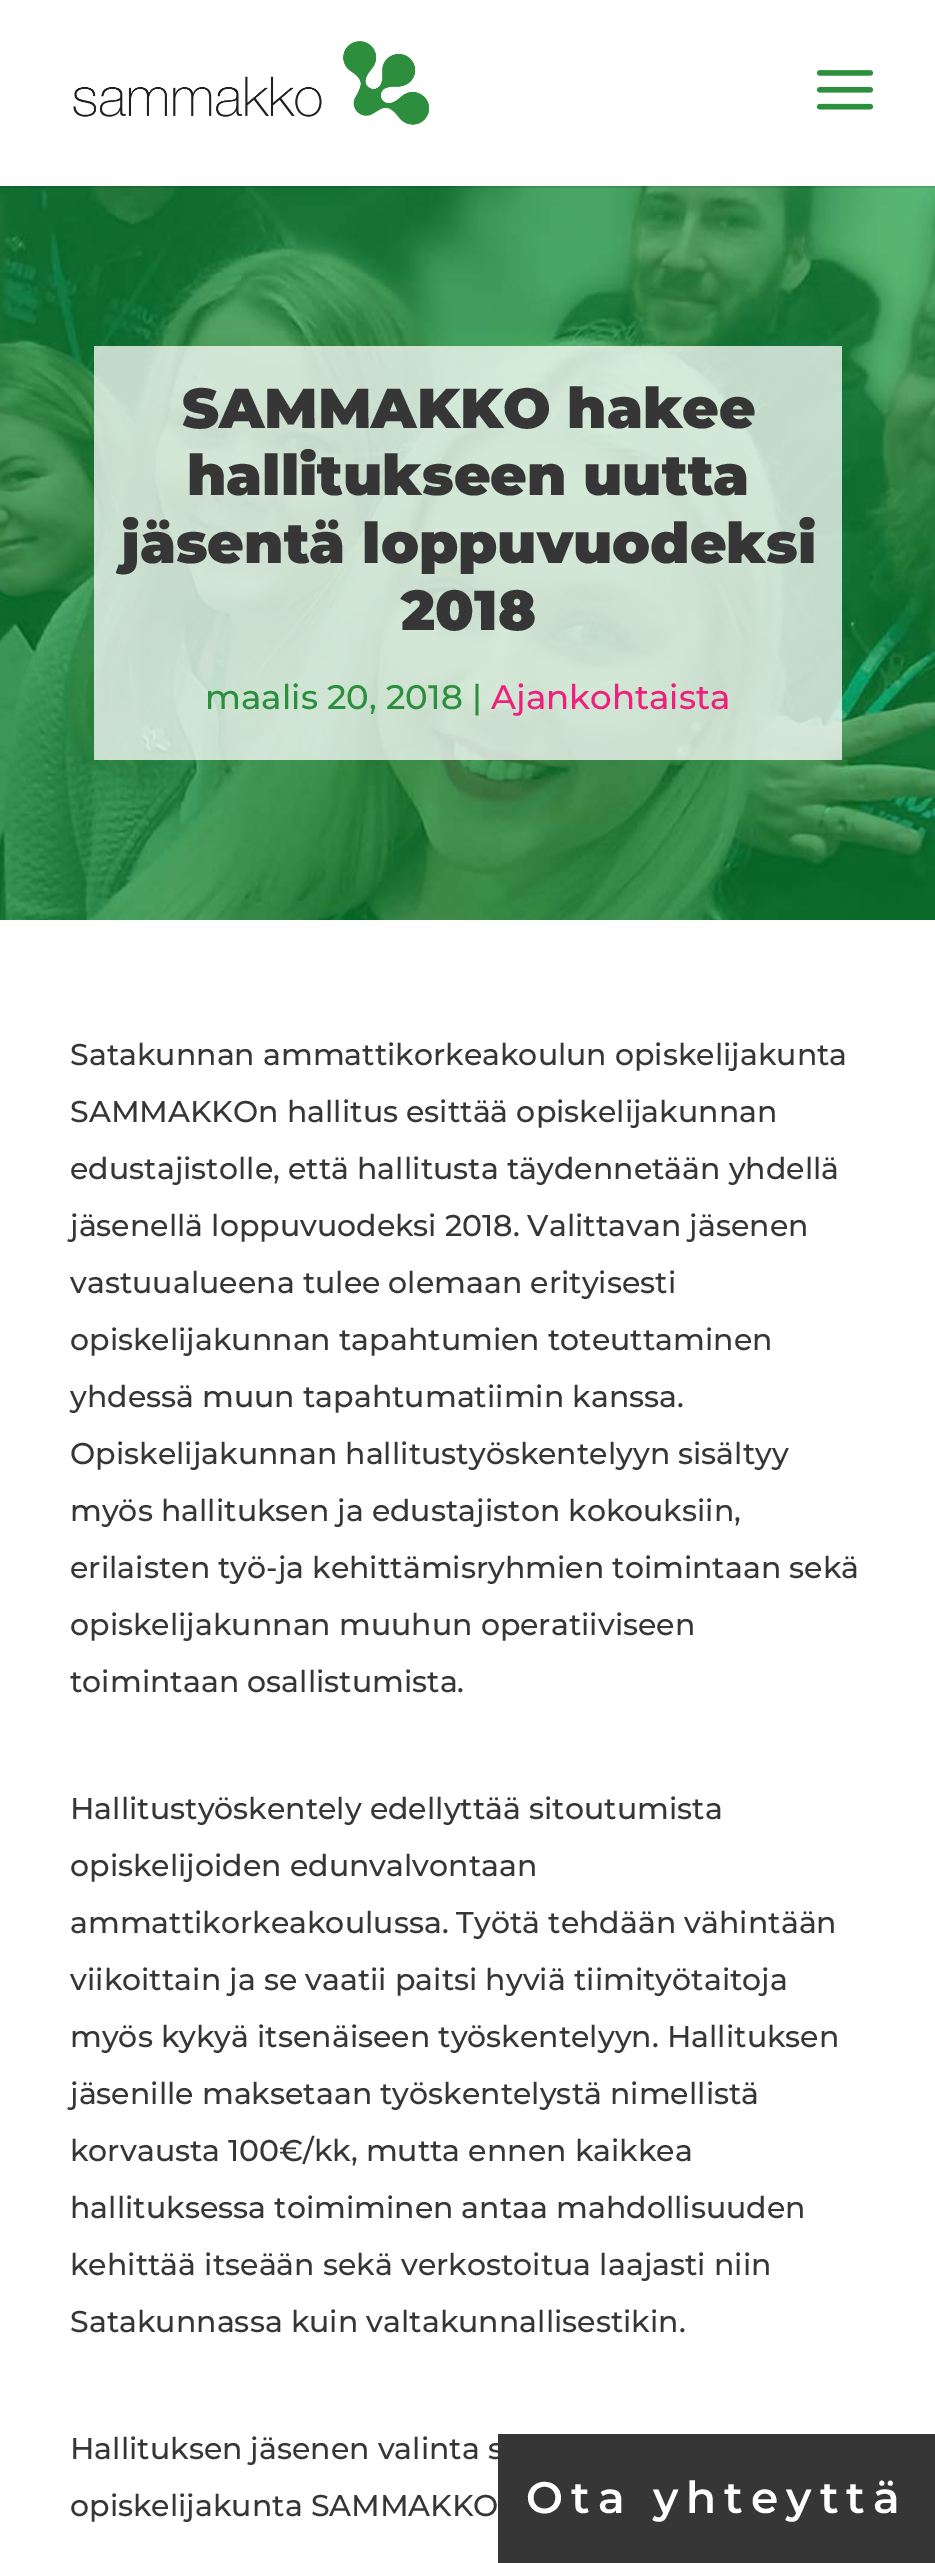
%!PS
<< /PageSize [935 2563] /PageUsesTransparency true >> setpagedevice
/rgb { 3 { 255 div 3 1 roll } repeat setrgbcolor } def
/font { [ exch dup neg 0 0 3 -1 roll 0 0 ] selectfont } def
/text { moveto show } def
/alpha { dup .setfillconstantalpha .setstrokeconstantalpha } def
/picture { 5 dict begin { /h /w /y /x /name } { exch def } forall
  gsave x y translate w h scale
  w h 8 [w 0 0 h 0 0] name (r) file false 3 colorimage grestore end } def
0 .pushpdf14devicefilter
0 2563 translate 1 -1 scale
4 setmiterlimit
255 255 255 rgb
0 0 935 2563 rectfill
(img_03.rgb) 0 186 935 734 picture
0.1 alpha
0 0 0 rgb
0 186 935 2 rectfill
1 alpha
(img_01.rgb) 73 41 356 98 picture
(img_02.rgb) 816 70 58 40 picture
0.75 alpha
255 255 255 rgb
94 346 748 414 rectfill
1 alpha
54 54 54 rgb
498 2434 437 129 rectfill
/Montserrat-Black 56.2 font
(SAMMAKKO hakee) 182 428 text
(hallitukseen uutta) 187 495 text
(jäsentä loppuvuodeksi) 121 563 text
(2018) 401 630 text
/Montserrat-Medium 34 font
44 143 61 rgb
(maalis 20, 2018 |) 205 709 text
237 33 124 rgb
(Ajankohtaista) 491 709 text
/Montserrat-Medium 30 font
54 54 54 rgb
(Satakunnan ammattikorkeakoulun opiskelijakunta) 70 1065 text
(SAMMAKKOn hallitus esittää opiskelijakunnan) 70 1122 text
(edustajistolle, että hallitusta täydennetään yhdellä) 70 1179 text
(jäsenellä loppuvuodeksi 2018. Valittavan jäsenen) 70 1236 text
(vastuualueena tulee olemaan erityisesti) 70 1293 text
(opiskelijakunnan tapahtumien toteuttaminen) 70 1350 text
(yhdessä muun tapahtumatiimin kanssa.) 70 1407 text
(Opiskelijakunnan hallitustyöskentelyyn sisältyy) 70 1464 text
(myös hallituksen ja edustajiston kokouksiin,) 70 1521 text
(erilaisten työ-ja kehittämisryhmien toimintaan sekä) 70 1578 text
(opiskelijakunnan muuhun operatiiviseen) 70 1635 text
(toimintaan osallistumista.) 70 1692 text
(Hallitustyöskentely edellyttää sitoutumista) 70 1819 text
(opiskelijoiden edunvalvontaan) 70 1876 text
(ammattikorkeakoulussa. Työtä tehdään vähintään) 70 1933 text
(viikoittain ja se vaatii paitsi hyviä tiimityötaitoja) 70 1990 text
(myös kykyä itsenäiseen työskentelyyn. Hallituksen) 70 2047 text
(jäsenille maksetaan työskentelystä nimellistä) 70 2104 text
(korvausta 100€/kk, mutta ennen kaikkea) 70 2161 text
(hallituksessa toimiminen antaa mahdollisuuden) 70 2218 text
(kehittää itseään sekä verkostoitua laajasti niin) 70 2275 text
(Satakunnassa kuin valtakunnallisestikin.) 70 2332 text
(Hallituksen jäsenen valinta s) 70 2459 text
(opiskelijakunta SAMMAKKO) 70 2516 text
/Montserrat-SemiBold 44 font
255 255 255 rgb
526 2513 moveto 8 0 (Ota yhteyttä) ashow
.poppdf14devicefilter showpage
